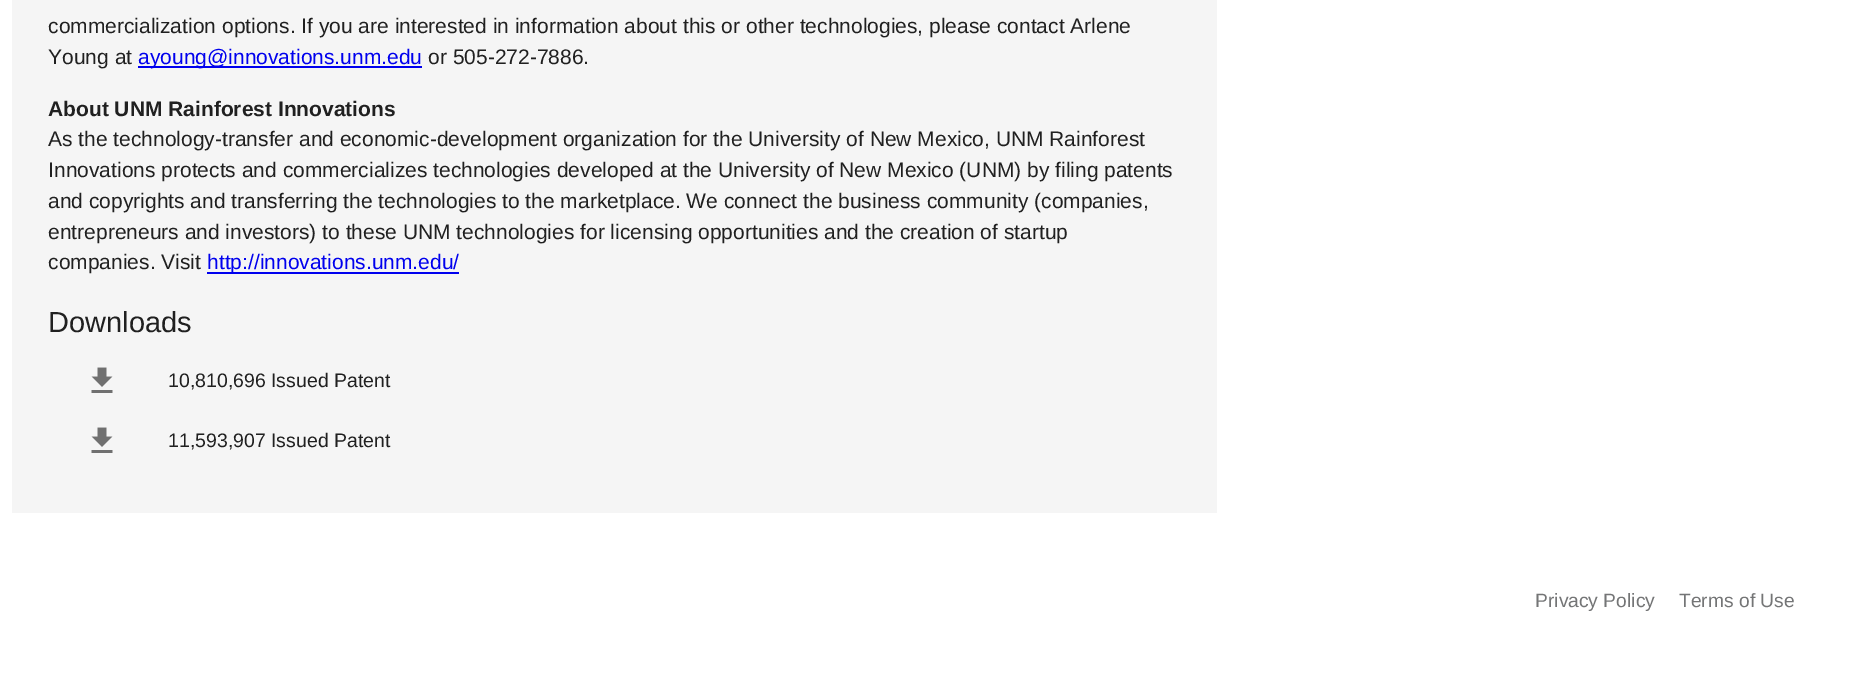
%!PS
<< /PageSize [1853 676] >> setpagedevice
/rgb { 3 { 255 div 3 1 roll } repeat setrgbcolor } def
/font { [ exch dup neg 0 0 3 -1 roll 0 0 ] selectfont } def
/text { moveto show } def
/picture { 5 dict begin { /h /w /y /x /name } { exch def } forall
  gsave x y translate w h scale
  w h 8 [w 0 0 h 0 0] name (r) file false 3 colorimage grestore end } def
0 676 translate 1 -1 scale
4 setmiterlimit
255 255 255 rgb
0 0 1853 676 rectfill
245 245 245 rgb
12 0 1205 513 rectfill
0 0 238 rgb
138 66 284 2 rectfill
207 272 252 2 rectfill
(img_01.rgb) 91 367 22 26 picture
(img_01.rgb) 91 427 22 26 picture
/LiberationSans-Regular 21 font
32 32 32 rgb
(commercialization options. If you are interested in information about this or other technologies, please contact Arlene) 48 33 text
(Young at) 48 64 text
0 0 238 rgb
(ayoung@innovations.unm.edu) 138 64 text
32 32 32 rgb
(or 505-272-7886.) 428 64 text
/LiberationSans-Bold 21 font
(About UNM Rainforest Innovations) 48 116 text
/LiberationSans-Regular 21 font
(As the technology-transfer and economic-development organization for the University of New Mexico, UNM Rainforest) 48 146 text
(Innovations protects and commercializes technologies developed at the University of New Mexico \(UNM\) by filing patents) 48 177 text
(and copyrights and transferring the technologies to the marketplace. We connect the business community \(companies,) 48 208 text
(entrepreneurs and investors\) to these UNM technologies for licensing opportunities and the creation of startup) 48 239 text
(companies. Visit) 48 269 text
0 0 238 rgb
(http://innovations.unm.edu/) 207 269 text
/LiberationSans-Regular 29 font
32 32 32 rgb
(Downloads) 48 332 text
/LiberationSans-Regular 19.5 font
(10,810,696 Issued Patent) 168 387 text
(11,593,907 Issued Patent) 168 447 text
/LiberationSans-Regular 19.25 font
116 117 118 rgb
(Privacy Policy) 1535 607 text
(Terms of Use) 1679 607 text
showpage
